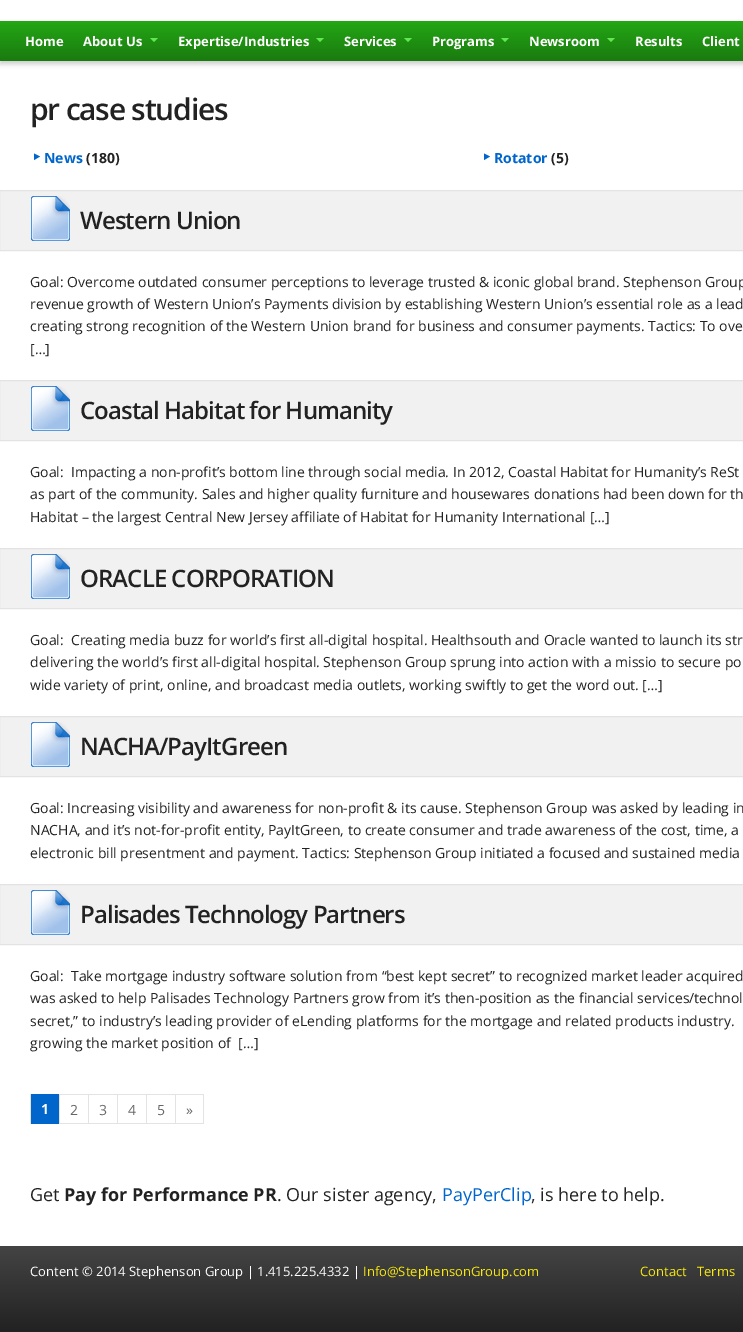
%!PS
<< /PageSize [743 1332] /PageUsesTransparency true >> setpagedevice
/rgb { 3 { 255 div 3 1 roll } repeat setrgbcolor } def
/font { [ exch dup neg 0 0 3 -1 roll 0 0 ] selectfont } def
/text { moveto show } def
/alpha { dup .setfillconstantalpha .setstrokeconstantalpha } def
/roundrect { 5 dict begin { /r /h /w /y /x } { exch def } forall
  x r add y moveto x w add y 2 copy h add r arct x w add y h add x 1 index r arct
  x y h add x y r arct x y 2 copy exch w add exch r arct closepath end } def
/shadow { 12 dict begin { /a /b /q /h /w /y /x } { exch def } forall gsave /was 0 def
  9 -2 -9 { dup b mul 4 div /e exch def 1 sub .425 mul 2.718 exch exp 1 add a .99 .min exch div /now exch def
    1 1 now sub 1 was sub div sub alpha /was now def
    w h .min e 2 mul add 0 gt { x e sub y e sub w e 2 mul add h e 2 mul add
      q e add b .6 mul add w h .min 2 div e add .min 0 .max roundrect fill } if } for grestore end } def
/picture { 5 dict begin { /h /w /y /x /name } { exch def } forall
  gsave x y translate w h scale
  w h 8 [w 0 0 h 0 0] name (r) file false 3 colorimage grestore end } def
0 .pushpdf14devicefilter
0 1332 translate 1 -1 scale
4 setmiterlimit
255 255 255 rgb
0 0 743 1332 rectfill
0 0 0 rgb
0 24 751 40 0 2.5 0.2 shadow
gsave 0 21 moveto 743 0 rlineto 0 40 rlineto -743 0 rlineto closepath clip newpath
<< /ShadingType 2 /ColorSpace /DeviceRGB /Coords [480 21 480 61] /Extend [true true] /Function << /FunctionType 2 /Domain [0 1] /C0 [0.141 0.655 0.082] /C1 [0.102 0.478 0.059] /N 1 >> >> shfill grestore
98 233 82 rgb
150 38 moveto 8 0 rlineto -4 4 rlineto closepath fill
316 38 moveto 8 0 rlineto -4 4 rlineto closepath fill
404 38 moveto 8 0 rlineto -4 4 rlineto closepath fill
501 38 moveto 8 0 rlineto -4 4 rlineto closepath fill
607 38 moveto 8 0 rlineto -4 4 rlineto closepath fill
0 102 204 rgb
34 153.5 moveto 6 3 rlineto -6 3.5 rlineto closepath fill
484 153.5 moveto 6 3 rlineto -6 3.5 rlineto closepath fill
241 241 241 rgb
-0.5 190.5 moveto 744 0 rlineto 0 60 rlineto -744 0 rlineto closepath gsave fill grestore
227 227 227 rgb
stroke
(img_01.rgb) 31 195 39 46 picture
241 241 241 rgb
-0.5 380.5 moveto 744 0 rlineto 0 60 rlineto -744 0 rlineto closepath gsave fill grestore
227 227 227 rgb
stroke
(img_01.rgb) 31 385 39 46 picture
241 241 241 rgb
-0.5 548.5 moveto 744 0 rlineto 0 60 rlineto -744 0 rlineto closepath gsave fill grestore
227 227 227 rgb
stroke
(img_01.rgb) 31 553 39 46 picture
241 241 241 rgb
-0.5 716.5 moveto 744 0 rlineto 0 60 rlineto -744 0 rlineto closepath gsave fill grestore
227 227 227 rgb
stroke
(img_01.rgb) 31 721 39 46 picture
241 241 241 rgb
-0.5 884.5 moveto 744 0 rlineto 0 60 rlineto -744 0 rlineto closepath gsave fill grestore
227 227 227 rgb
stroke
(img_01.rgb) 31 889 39 46 picture
30 1094 1 30 rectfill
59 1094 1 30 rectfill
0 102 204 rgb
31 1094 28 30 rectfill
227 227 227 rgb
88 1094 1 30 rectfill
60 1094 28 1 rectfill
60 1123 28 1 rectfill
117 1094 1 30 rectfill
89 1094 28 1 rectfill
89 1123 28 1 rectfill
146 1094 1 30 rectfill
118 1094 28 1 rectfill
118 1123 28 1 rectfill
175 1094 1 30 rectfill
147 1094 28 1 rectfill
147 1123 28 1 rectfill
203 1094 1 30 rectfill
176 1094 27 1 rectfill
176 1123 27 1 rectfill
gsave 0 1246 moveto 743 0 rlineto 0 86 rlineto -743 0 rlineto closepath clip newpath
<< /ShadingType 2 /ColorSpace /DeviceRGB /Coords [480 1246 480 1332] /Extend [true true] /Function << /FunctionType 2 /Domain [0 1] /C0 [0.267 0.267 0.267] /C1 [0.133 0.133 0.133] /N 1 >> >> shfill grestore
/OpenSans-Bold 13 font
255 255 255 rgb
(Home) 25 46 text
(About Us) 83 46 text
(Expertise/Industries) 178 46 text
(Services) 344 46 text
(Programs) 432 46 text
(Newsroom) 529 46 text
(Results) 635 46 text
(Client) 702 46 text
/OpenSans-SemiBold 30 font
34 34 34 rgb
30 120 moveto -1.25 0 (pr case studies) ashow
/OpenSans-Bold 14 font
0 102 204 rgb
(News) 44 163 text
34 34 34 rgb
(\(180\)) 86 163 text
0 102 204 rgb
(Rotator) 494 163 text
34 34 34 rgb
(\(5\)) 551 163 text
/OpenSans-SemiBold 24 font
80 229 moveto -0.95 0 (Western Union) ashow
/OpenSans-Regular 14 font
(Goal: Overcome outdated consumer perceptions to leverage trusted & iconic global brand. Stephenson Group) 30 287 text
(revenue growth of Western Union’s Payments division by establishing Western Union’s essential role as a lead) 30 309 text
(creating strong recognition of the Western Union brand for business and consumer payments. Tactics: To ove) 30 331 text
([…]) 30 354 text
/OpenSans-SemiBold 24 font
80 419 moveto -0.95 0 (Coastal Habitat for Humanity) ashow
/OpenSans-Regular 14 font
(Goal:  Impacting a non-profit’s bottom line through social media. In 2012, Coastal Habitat for Humanity’s ReSt) 30 477 text
(as part of the community. Sales and higher quality furniture and housewares donations had been down for th) 30 499 text
(Habitat – the largest Central New Jersey affiliate of Habitat for Humanity International […]) 30 522 text
/OpenSans-SemiBold 24 font
80 587 moveto -0.95 0 (ORACLE CORPORATION) ashow
/OpenSans-Regular 14 font
(Goal:  Creating media buzz for world’s first all-digital hospital. Healthsouth and Oracle wanted to launch its str) 30 645 text
(delivering the world’s first all-digital hospital. Stephenson Group sprung into action with a missio to secure po) 30 667 text
(wide variety of print, online, and broadcast media outlets, working swiftly to get the word out. […]) 30 690 text
/OpenSans-SemiBold 24 font
80 755 moveto -0.95 0 (NACHA/PayItGreen) ashow
/OpenSans-Regular 14 font
(Goal: Increasing visibility and awareness for non-profit & its cause. Stephenson Group was asked by leading in) 30 813 text
(NACHA, and it’s not-for-profit entity, PayItGreen, to create consumer and trade awareness of the cost, time, a) 30 835 text
(electronic bill presentment and payment. Tactics: Stephenson Group initiated a focused and sustained media) 30 858 text
/OpenSans-SemiBold 24 font
80 923 moveto -0.95 0 (Palisades Technology Partners) ashow
/OpenSans-Regular 14 font
(Goal:  Take mortgage industry software solution from “best kept secret” to recognized market leader acquired) 30 981 text
(was asked to help Palisades Technology Partners grow from it’s then-position as the financial services/technol) 30 1003 text
(secret,” to industry’s leading provider of eLending platforms for the mortgage and related products industry.) 30 1026 text
(growing the market position of  […]) 30 1048 text
/OpenSans-Bold 14 font
255 255 255 rgb
(1) 41 1114 text
/OpenSans-Regular 14 font
102 102 102 rgb
(2) 70 1115 text
(3) 99 1115 text
(4) 128 1115 text
(5) 157 1115 text
(») 186 1115 text
/OpenSans-Regular 18 font
34 34 34 rgb
(Get) 30 1201 text
/OpenSans-Bold 18 font
(Pay for Performance PR) 64 1201 text
/OpenSans-Regular 18 font
(. Our sister agency,) 277 1201 text
0 102 204 rgb
(PayPerClip) 442 1201 text
34 34 34 rgb
(, is here to help.) 531 1201 text
/OpenSans-Regular 13 font
255 255 255 rgb
(Content © 2014 Stephenson Group | 1.415.225.4332 |) 30 1276 text
248 233 11 rgb
(Info@StephensonGroup.com) 363 1276 text
(Contact) 640 1276 text
(Terms) 697 1276 text
.poppdf14devicefilter showpage
